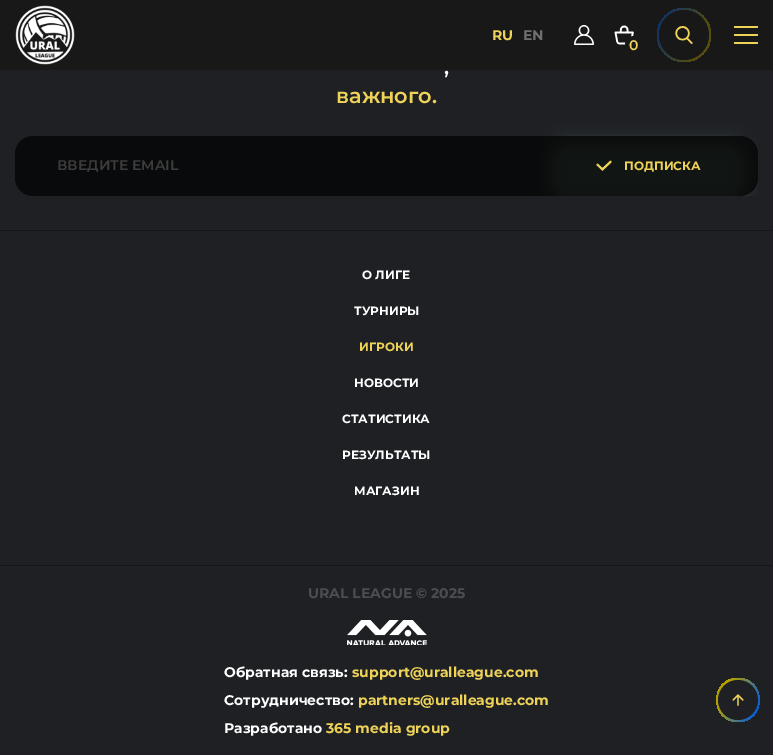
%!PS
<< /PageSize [773 755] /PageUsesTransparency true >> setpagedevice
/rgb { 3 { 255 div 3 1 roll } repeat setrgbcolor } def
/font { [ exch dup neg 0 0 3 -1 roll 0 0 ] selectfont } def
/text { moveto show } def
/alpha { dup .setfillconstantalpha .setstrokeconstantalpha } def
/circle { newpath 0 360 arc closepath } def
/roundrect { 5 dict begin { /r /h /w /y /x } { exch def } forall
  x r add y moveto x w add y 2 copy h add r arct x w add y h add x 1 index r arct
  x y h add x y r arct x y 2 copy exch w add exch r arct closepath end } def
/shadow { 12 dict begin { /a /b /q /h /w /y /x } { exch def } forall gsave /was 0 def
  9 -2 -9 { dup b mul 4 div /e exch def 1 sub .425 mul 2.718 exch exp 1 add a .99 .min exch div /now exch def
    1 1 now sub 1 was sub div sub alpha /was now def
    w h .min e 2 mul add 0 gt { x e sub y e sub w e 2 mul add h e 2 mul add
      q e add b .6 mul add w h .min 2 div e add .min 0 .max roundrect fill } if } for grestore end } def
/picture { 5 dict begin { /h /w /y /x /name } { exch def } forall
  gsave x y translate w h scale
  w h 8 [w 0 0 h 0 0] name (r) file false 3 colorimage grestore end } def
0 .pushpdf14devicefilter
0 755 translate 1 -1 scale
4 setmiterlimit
30 32 36 rgb
0 0 773 755 rectfill
24 24 24 rgb
0 0 773 70 rectfill
(img_01.rgb) 15 5 60 60 picture
238 211 88 rgb
734 26 24 2 1 roundrect fill
734 34 24 2 1 roundrect fill
734 42 24 2 1 roundrect fill
(img_02.rgb) 574 25 20 20 picture
(img_03.rgb) 614 25 20 20 picture
24 24 24 rgb
634 45 9 circle fill
gsave 684 35 27 circle clip newpath
<< /ShadingType 2 /ColorSpace /DeviceRGB /Coords [632 11 717 50] /Extend [true true] /Function << /FunctionType 3 /Domain [0 1] /Functions [<< /FunctionType 2 /Domain [0 1] /C0 [0.094 0.094 0.094] /C1 [0.055 0.2 0.412] /N 1 >> << /FunctionType 2 /Domain [0 1] /C0 [0.055 0.2 0.412] /C1 [0.333 0.306 0.055] /N 1 >> << /FunctionType 2 /Domain [0 1] /C0 [0.333 0.306 0.055] /C1 [0.333 0.306 0.055] /N 1 >>] /Bounds [0.31 0.81] /Encode [0 1 0 1 0 1] >> >> shfill grestore
684 35 25 circle fill
(img_04.rgb) 675 26 18 18 picture
21 22 25 rgb
0 230 773 1 rectfill
gsave
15 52 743 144 rectclip
62 80 72 rgb
549 142 198 60 18 10 0.85 shadow
grestore
0.7 alpha
0 0 0 rgb
33 136 moveto 505 0 rlineto 0 60 rlineto -505 0 rlineto -10 0 -18 -8 -18 -18 rcurveto 0 -24 rlineto 0 -10 8 -18 18 -18 rcurveto closepath fill
538 136 moveto 202 0 rlineto 10 0 18 8 18 18 rcurveto 0 24 rlineto 0 10 -8 18 -18 18 rcurveto -202 0 rlineto closepath fill
1 alpha
(img_05.rgb) 596 160 16 11 picture
gsave 738 722 moveto -29 0 -29 -44 0 -44 rcurveto 29 0 29 44 0 44 rcurveto closepath clip newpath
<< /ShadingType 2 /ColorSpace /DeviceRGB /Coords [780 720 712 688] /Extend [true true] /Function << /FunctionType 3 /Domain [0 1] /Functions [<< /FunctionType 2 /Domain [0 1] /C0 [0.118 0.125 0.141] /C1 [0 0.357 0.886] /N 1 >> << /FunctionType 2 /Domain [0 1] /C0 [0 0.357 0.886] /C1 [0.694 0.627 0] /N 1 >> << /FunctionType 2 /Domain [0 1] /C0 [0.694 0.627 0] /C1 [0.694 0.627 0] /N 1 >>] /Bounds [0.31 0.81] /Encode [0 1 0 1 0 1] >> >> shfill grestore
30 32 36 rgb
738 700 20 circle fill
(img_06.rgb) 732 694 12 12 picture
21 22 25 rgb
0 565 773 1 rectfill
(img_07.rgb) 347 620 80 25 picture
/Montserrat-Bold 14 font
238 211 88 rgb
(RU) 492 40 text
112 112 112 rgb
(EN) 523 40 text
/Montserrat-SemiBold 14 font
238 211 88 rgb
(0) 629 50 text
/Montserrat-SemiBold 21 font
255 255 255 rgb
(,) 444 74 text
238 211 88 rgb
(важного.) 336 103 text
/Montserrat-SemiBold 14 font
61 61 61 rgb
(ВВЕДИТЕ EMAIL) 57 170 text
/Montserrat-Bold 12 font
238 211 88 rgb
(ПОДПИСКА) 624 170 text
255 255 255 rgb
(О ЛИГЕ) 362 279 text
(ТУРНИРЫ) 354 315 text
238 211 88 rgb
(ИГРОКИ) 359 351 text
255 255 255 rgb
(НОВОСТИ) 354 387 text
(СТАТИСТИКА) 342 423 text
(РЕЗУЛЬТАТЫ) 342 459 text
(МАГАЗИН) 354 495 text
/Montserrat-Bold 14 font
75 77 80 rgb
(URAL LEAGUE © 2025) 308 598 text
255 255 255 rgb
(Обратная связь:) 224 677 text
238 211 88 rgb
(support@uralleague.com) 352 677 text
255 255 255 rgb
(Сотрудничество:) 224 705 text
238 211 88 rgb
(partners@uralleague.com) 358 705 text
255 255 255 rgb
(Разработано) 224 733 text
238 211 88 rgb
(365 media group) 326 733 text
.poppdf14devicefilter showpage
